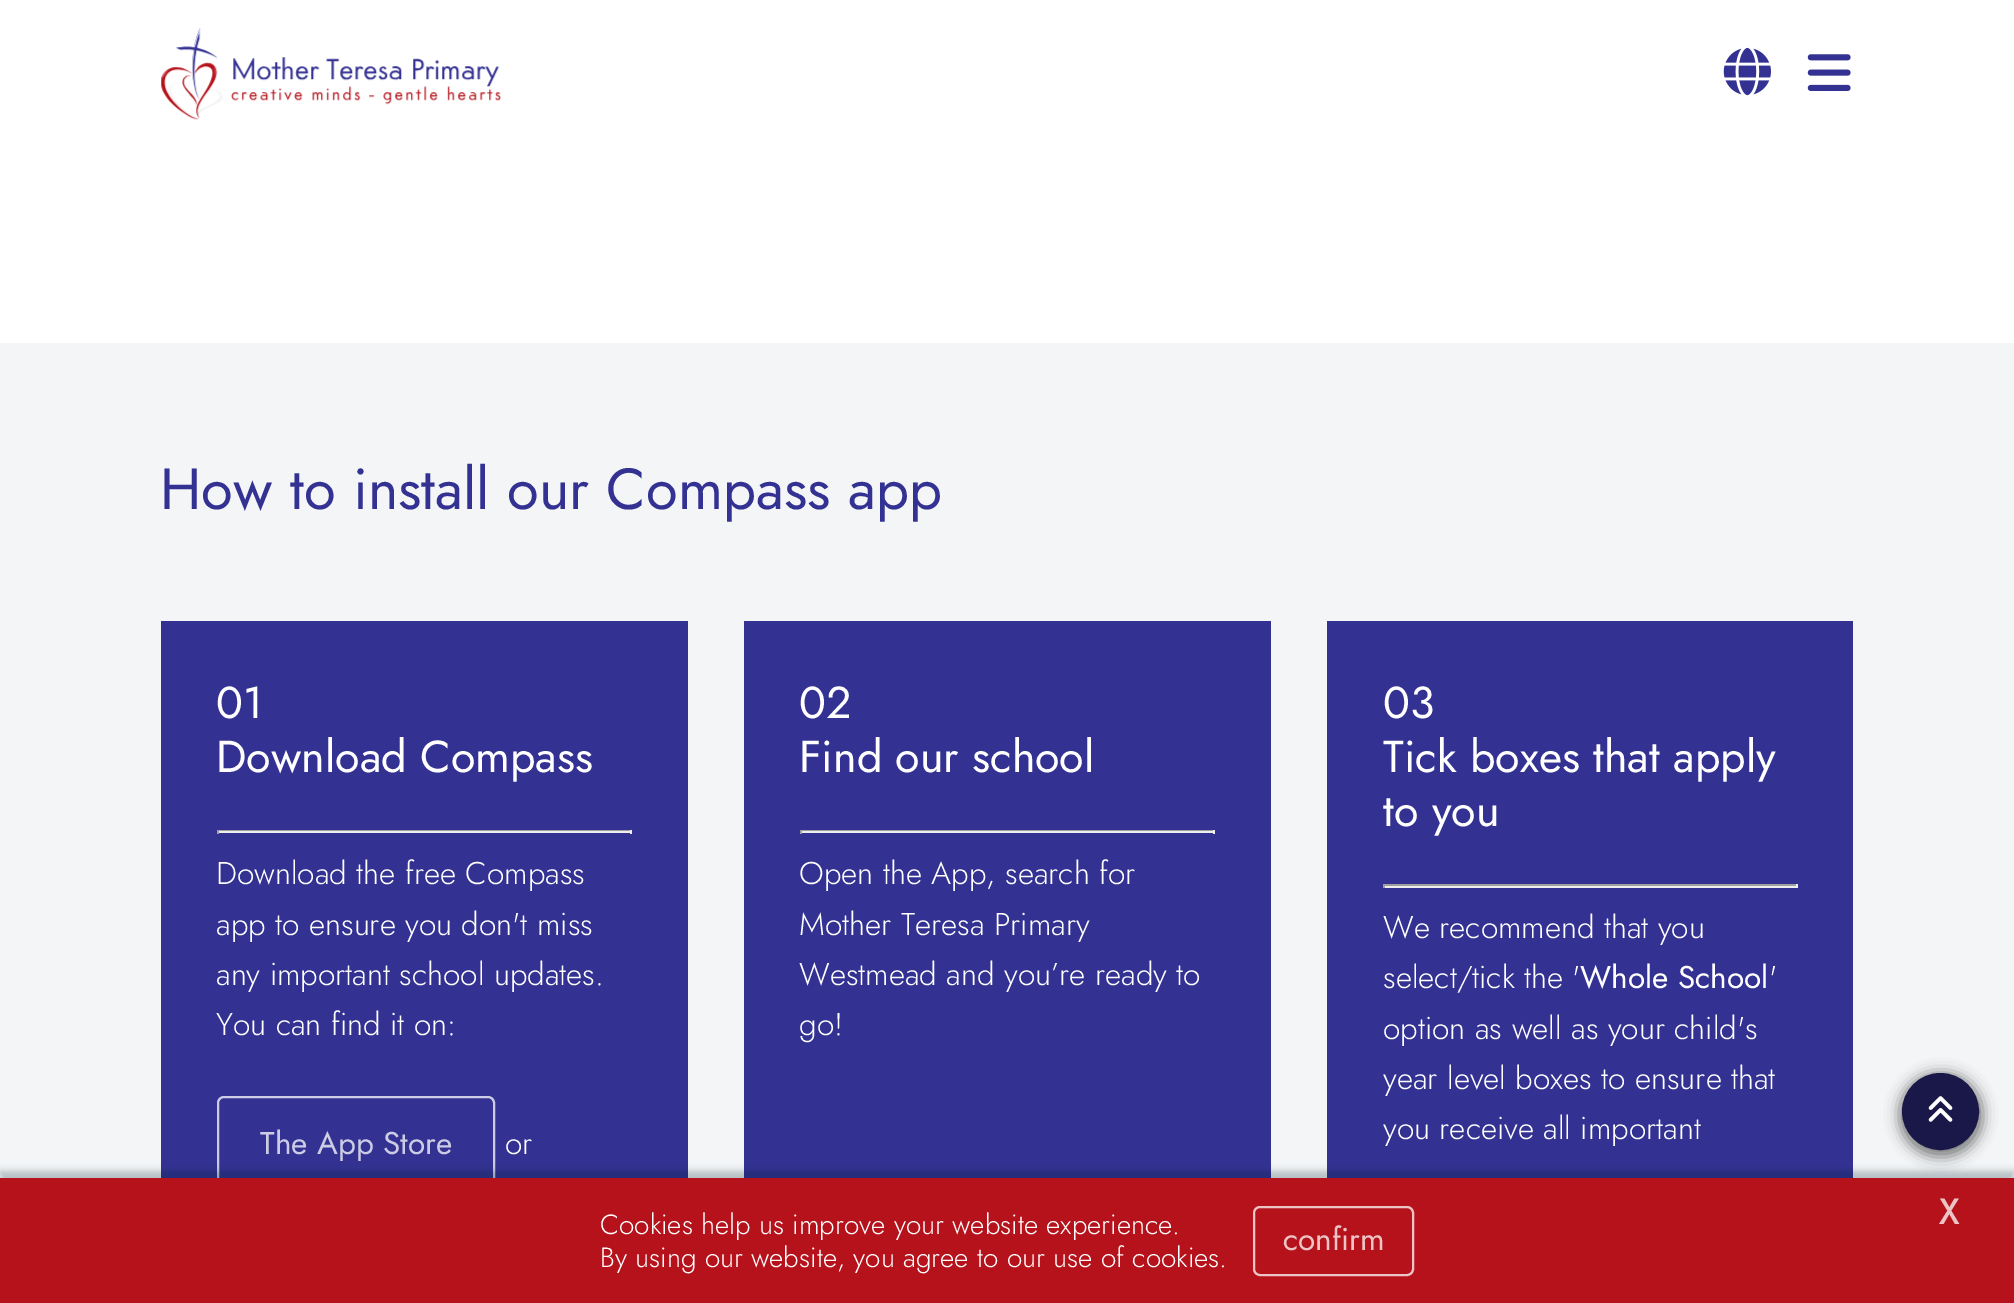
%!PS
<< /PageSize [2014 1303] /PageUsesTransparency true >> setpagedevice
/rgb { 3 { 255 div 3 1 roll } repeat setrgbcolor } def
/font { [ exch dup neg 0 0 3 -1 roll 0 0 ] selectfont } def
/text { moveto show } def
/alpha { dup .setfillconstantalpha .setstrokeconstantalpha } def
/circle { newpath 0 360 arc closepath } def
/roundrect { 5 dict begin { /r /h /w /y /x } { exch def } forall
  x r add y moveto x w add y 2 copy h add r arct x w add y h add x 1 index r arct
  x y h add x y r arct x y 2 copy exch w add exch r arct closepath end } def
/shadow { 12 dict begin { /a /b /q /h /w /y /x } { exch def } forall gsave /was 0 def
  9 -2 -9 { dup b mul 4 div /e exch def 1 sub .425 mul 2.718 exch exp 1 add a .99 .min exch div /now exch def
    1 1 now sub 1 was sub div sub alpha /was now def
    w h .min e 2 mul add 0 gt { x e sub y e sub w e 2 mul add h e 2 mul add
      q e add b .6 mul add w h .min 2 div e add .min 0 .max roundrect fill } if } for grestore end } def
/picture { 5 dict begin { /h /w /y /x /name } { exch def } forall
  gsave x y translate w h scale
  w h 8 [w 0 0 h 0 0] name (r) file false 3 colorimage grestore end } def
0 .pushpdf14devicefilter
0 1303 translate 1 -1 scale
4 setmiterlimit
255 255 255 rgb
0 0 2014 1303 rectfill
(img_01.rgb) 161 28 340 92 picture
(img_02.rgb) 1723 47 48 49 picture
(img_03.rgb) 1807 54 44 37 picture
243 245 247 rgb
0 343 2014 835 rectfill
51 49 146 rgb
161 621 527 557 rectfill
159 159 159 rgb
217 830 415 1 rectfill
238 238 238 rgb
630 830 2 4 rectfill
217 831 415 2 rectfill
159 159 159 rgb
217 830 2 4 rectfill
204 204 228 rgb
2 setlinewidth
218 1097 276 96 6 roundrect stroke
51 49 146 rgb
744 621 527 557 rectfill
159 159 159 rgb
800 830 415 1 rectfill
238 238 238 rgb
1213 830 2 4 rectfill
800 831 415 2 rectfill
159 159 159 rgb
800 830 2 4 rectfill
51 49 146 rgb
1327 621 526 557 rectfill
159 159 159 rgb
1383 884 414 2 rectfill
238 238 238 rgb
1796 884 2 4 rectfill
1383 886 414 2 rectfill
159 159 159 rgb
1383 884 2 4 rectfill
0 0 0 rgb
1899 1073 84 84 42 7 0.5 shadow
25 24 73 rgb
1940.5 1111.5 37.5 circle gsave fill grestore
stroke
(img_04.rgb) 1928 1096 25 26 picture
0 32 47 rgb
0 1171 2014 126 0 3.5 0.25 shadow
181 18 27 rgb
0 1178 2014 125 rectfill
237 196 198 rgb
1254 1207 159 68 6 roundrect stroke
/Jost-Regular 57.9 font
51 49 146 rgb
(How to install our Compass app) 160 509 text
/Jost-Regular 44.75 font
255 255 255 rgb
(01) 216 718 text
(Download Compass) 216 772 text
/Jost-Light 31.5 font
(Download the free Compass) 216 884 text
(app to ensure you don't miss) 216 935 text
(any important school updates.) 216 985 text
(You can find it on:) 216 1035 text
/Jost-Regular 31.5 font
204 204 228 rgb
(The App Store) 260 1154 text
/Jost-Light 31.5 font
255 255 255 rgb
(or) 505 1154 text
/Jost-Regular 44.75 font
(02) 799 718 text
(Find our school) 799 772 text
/Jost-Light 31.5 font
(Open the App, search for) 799 884 text
(Mother Teresa Primary) 799 935 text
(Westmead and you’re ready to) 799 985 text
(go!) 799 1035 text
/Jost-Regular 44.75 font
(03) 1383 718 text
(Tick boxes that apply) 1383 772 text
(to you) 1383 826 text
/Jost-Light 31.5 font
(We recommend that you) 1383 938 text
(select/tick the ') 1383 988 text
/Jost-Regular 31.5 font
(Whole School) 1580 988 text
/Jost-Light 31.5 font
(') 1769 988 text
(option as well as your child's) 1383 1039 text
(year level boxes to ensure that) 1383 1089 text
(you receive all important) 1383 1139 text
/Jost-Light 27.75 font
(Cookies help us improve your website experience.) 600 1234 text
(By using our website, you agree to our use of cookies.) 600 1267 text
/Jost-Regular 31.5 font
237 196 198 rgb
(confirm) 1283 1250 text
/Jost-Bold 35 font
(X) 1939 1224 text
.poppdf14devicefilter showpage
